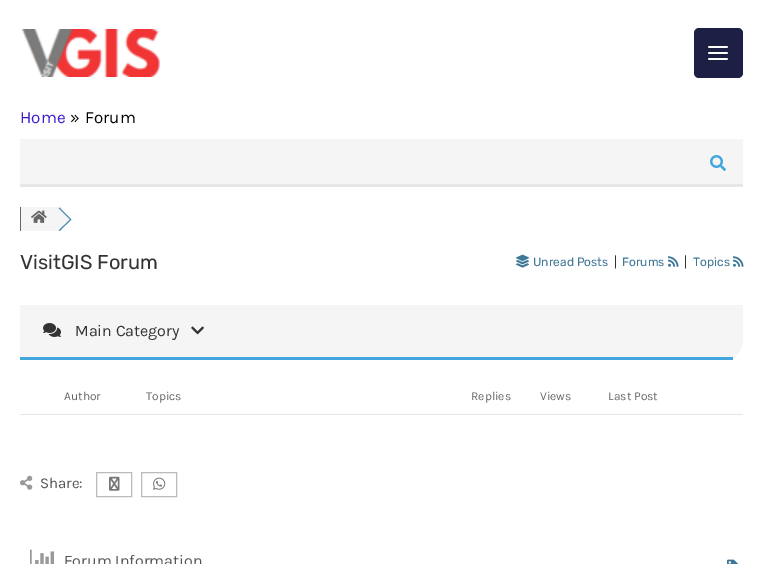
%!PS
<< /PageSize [763 564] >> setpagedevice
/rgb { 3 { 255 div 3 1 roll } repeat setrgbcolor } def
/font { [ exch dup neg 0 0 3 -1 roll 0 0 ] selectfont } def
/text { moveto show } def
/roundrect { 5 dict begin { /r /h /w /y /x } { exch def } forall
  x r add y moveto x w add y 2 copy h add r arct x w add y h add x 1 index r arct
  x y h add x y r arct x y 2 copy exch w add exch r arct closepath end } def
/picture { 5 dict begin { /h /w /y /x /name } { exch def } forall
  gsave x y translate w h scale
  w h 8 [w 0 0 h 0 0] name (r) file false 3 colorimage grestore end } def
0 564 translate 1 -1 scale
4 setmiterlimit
255 255 255 rgb
0 0 763 564 rectfill
(img_01.rgb) 21 29 139 48 picture
29 31 69 rgb
694 28 49 50 5 roundrect fill
(img_02.rgb) 708 46 20 14 picture
245 245 245 rgb
20 139 723 45 rectfill
230 230 230 rgb
20 184 723 3 rectfill
(img_03.rgb) 710 155 16 16 picture
245 245 245 rgb
21 207 41 24 rectfill
102 102 102 rgb
20 207 1 24 rectfill
(img_04.rgb) 31 210 16 13 picture
74 142 179 rgb
59.5 207.5 moveto -1 1 rlineto 11 11 rlineto -11 10.5 rlineto 1 1 rlineto 12 -11.5 rlineto closepath fill
245 245 245 rgb
57.5 207.5 moveto 12 12 rlineto -12 11.5 rlineto -11.5 -11.5 rlineto closepath fill
(img_05.rgb) 516 254 13 14 picture
(img_06.rgb) 668 256 11 11 picture
(img_06.rgb) 733 256 11 11 picture
20 305 moveto 723 0 rlineto 0 35 rlineto 0 11 -9 20 -20 20 rcurveto -703 0 rlineto closepath fill
67 166 223 rgb
20 357 713 3 rectfill
(img_07.rgb) 43 323 18 14 picture
(img_08.rgb) 191 326 13 9 picture
230 230 230 rgb
20 414 723 1 rectfill
(img_09.rgb) 20 475 13 15 picture
187 187 187 rgb
96.5 472.5 35 24 rectstroke
(img_10.rgb) 109 476 11 15 picture
141.5 472.5 35 24 rectstroke
(img_11.rgb) 153 477 13 13 picture
(img_12.rgb) 30 549 24 15 picture
(img_13.rgb) 727 559 12 5 picture
/Karla-Regular 17 font
63 28 203 rgb
(Home) 20 123 text
0 0 0 rgb
(») 70 123 text
(Forum) 85 123 text
/Rubik-Regular 20 font
51 51 51 rgb
(VisitGIS Forum) 20 269 text
/Rubik-Regular 12 font
63 119 150 rgb
(Unread Posts) 533 266 text
51 51 51 rgb
(|) 614 266 text
63 119 150 rgb
(Forums) 622 266 text
51 51 51 rgb
(|) 684 266 text
63 119 150 rgb
(Topics) 693 266 text
/Karla-Regular 16 font
51 51 51 rgb
(Main Category) 75 336 text
/Karla-Regular 12 font
102 102 102 rgb
(Author) 64 400 text
(Topics) 146 400 text
(Replies) 471 400 text
(Views) 540 400 text
(Last Post) 608 400 text
/Karla-Regular 15 font
85 85 85 rgb
(Share:) 40 488 text
/Karla-Regular 16 font
(Forum Information) 64 566 text
showpage
